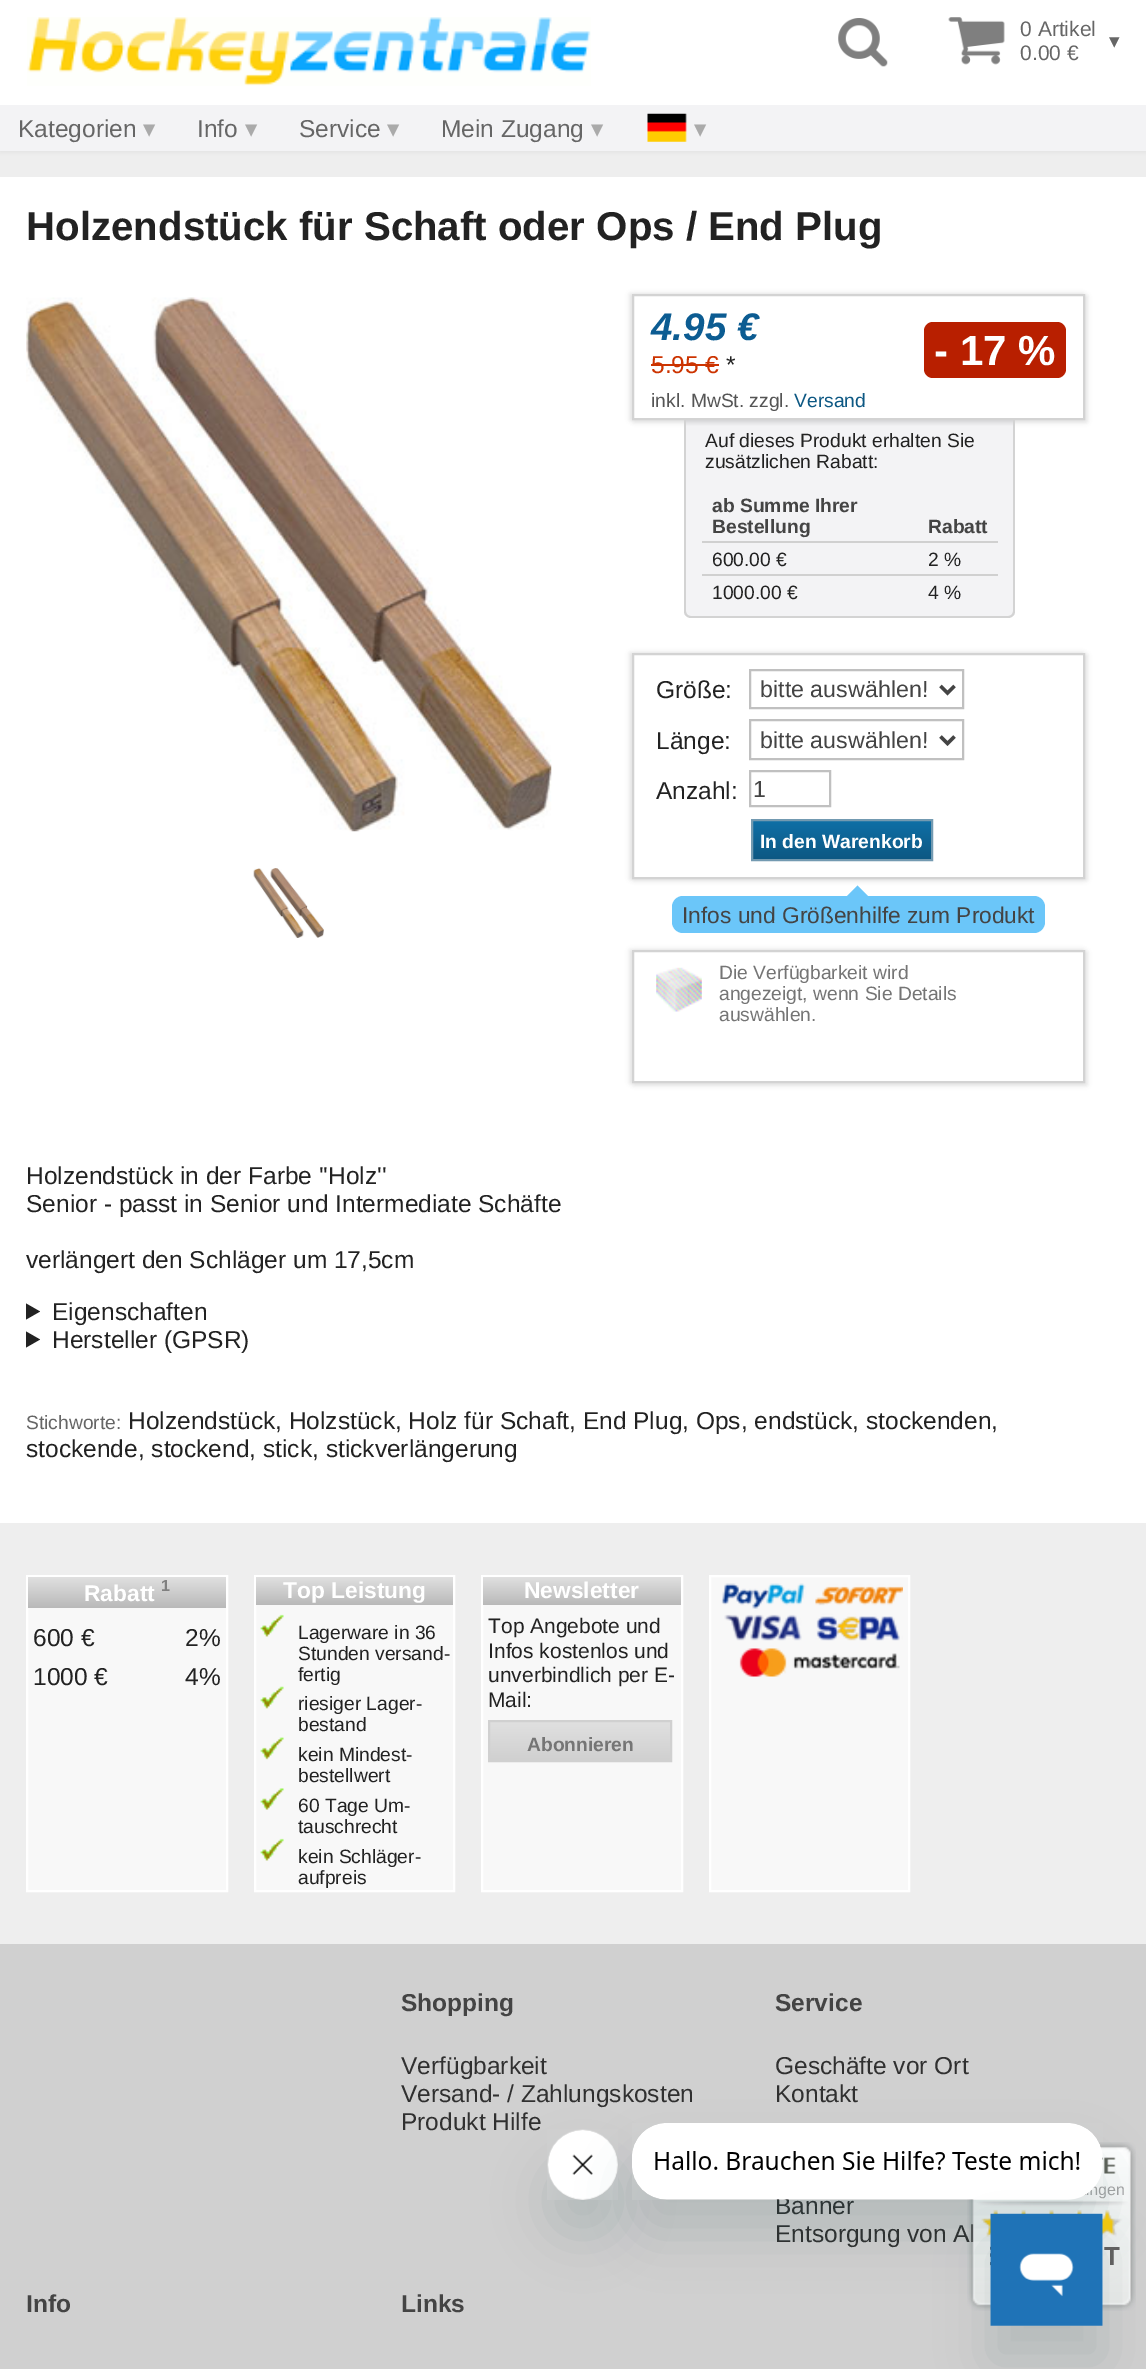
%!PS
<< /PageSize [1146 2369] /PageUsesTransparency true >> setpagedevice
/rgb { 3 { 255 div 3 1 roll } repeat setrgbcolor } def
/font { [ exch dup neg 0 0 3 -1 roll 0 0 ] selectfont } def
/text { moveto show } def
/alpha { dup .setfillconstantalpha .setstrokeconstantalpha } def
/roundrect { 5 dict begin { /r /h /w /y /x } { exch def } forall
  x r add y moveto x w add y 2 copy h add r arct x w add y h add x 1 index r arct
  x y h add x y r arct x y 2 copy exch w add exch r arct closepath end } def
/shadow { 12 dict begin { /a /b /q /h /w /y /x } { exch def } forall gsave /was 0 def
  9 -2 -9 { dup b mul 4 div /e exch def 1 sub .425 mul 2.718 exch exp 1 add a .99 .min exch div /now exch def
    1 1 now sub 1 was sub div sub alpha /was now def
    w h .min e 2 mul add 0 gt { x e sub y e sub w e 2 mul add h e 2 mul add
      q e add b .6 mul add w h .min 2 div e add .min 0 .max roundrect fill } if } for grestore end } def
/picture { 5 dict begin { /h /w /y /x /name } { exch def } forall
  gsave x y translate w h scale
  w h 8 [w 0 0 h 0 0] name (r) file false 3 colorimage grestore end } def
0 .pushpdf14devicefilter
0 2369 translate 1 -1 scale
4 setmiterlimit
238 238 238 rgb
0 0 1146 2369 rectfill
224 224 224 rgb
0 2 1146 150 0 2.5 1 shadow
255 255 255 rgb
0 0 1146 105 rectfill
(img_01.rgb) 27 17 564 69 picture
(img_02.rgb) 838 18 50 49 picture
(img_03.rgb) 948 17 57 48 picture
243 243 245 rgb
0 105 1146 46 rectfill
(img_04.rgb) 647 113 40 29 picture
255 255 255 rgb
0 177 1146 1346 rectfill
(img_05.rgb) 26 297 526 535 picture
(img_06.rgb) 253 868 71 70 picture
gsave
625 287 moveto 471 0 rlineto 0 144 rlineto -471 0 rlineto closepath 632 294 moveto 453 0 rlineto 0 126 rlineto -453 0 rlineto closepath eoclip newpath
224 224 224 rgb
634 296 453 126 0 2.5 1 shadow
grestore
gsave
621 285 moveto 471 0 rlineto 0 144 rlineto -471 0 rlineto closepath 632 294 moveto 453 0 rlineto 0 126 rlineto -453 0 rlineto closepath eoclip newpath
224 224 224 rgb
630 294 453 126 0 2.5 1 shadow
grestore
211 211 211 rgb
2 setlinewidth
633 295 451 124 rectstroke
204 51 0 rgb
651 364 68 2 rectfill
184 31 0 rgb
924 322 142 56 9 roundrect fill
gsave
684 420 moveto 331 0 rlineto 0 191 rlineto 0 4 -3 7 -7 7 rcurveto -317 0 rlineto -4 0 -7 -3 -7 -7 rcurveto closepath clip newpath
gsave 684 420 moveto 331 0 rlineto 0 196 rlineto -331 0 rlineto closepath clip newpath
<< /ShadingType 2 /ColorSpace /DeviceRGB /Coords [850 420 850 616] /Extend [true true] /Function << /FunctionType 3 /Domain [0 1] /Functions [<< /FunctionType 2 /Domain [0 1] /C0 [0.835 0.835 0.843] /C1 [0.953 0.953 0.961] /N 1 >> << /FunctionType 2 /Domain [0 1] /C0 [0.953 0.953 0.961] /C1 [0.953 0.953 0.961] /N 1 >>] /Bounds [0.03] /Encode [0 1 0 1] >> >> shfill grestore
grestore
211 211 211 rgb
684 420 moveto 331 0 rlineto 0 191 rlineto 0 4 -3 7 -7 7 rcurveto -317 0 rlineto -4 0 -7 -3 -7 -7 rcurveto closepath 686 420 moveto 327 0 rlineto 0 191 rlineto 0 3 -2 5 -5 5 rcurveto -317 0 rlineto -3 0 -5 -2 -5 -5 rcurveto closepath eofill
208 208 208 rgb
702 541 296 2 rectfill
702 574 296 2 rectfill
224 224 224 rgb
634 655 453 225 0 2.5 1 shadow
630 653 453 226 0 2.5 1 shadow
255 255 255 rgb
633 654 moveto 451 0 rlineto 0 224 rlineto -451 0 rlineto closepath gsave fill grestore
211 211 211 rgb
stroke
192 192 192 rgb
750 670 213 38 rectstroke
68 68 68 rgb
3.5 setlinewidth
940.5 686 moveto 7 7 rlineto 7 -7 rlineto stroke
192 192 192 rgb
2 setlinewidth
750 720 213 39 rectstroke
68 68 68 rgb
3.5 setlinewidth
940.5 736.5 moveto 7 7 rlineto 7 -7 rlineto stroke
192 192 192 rgb
2 setlinewidth
750 771 80 35 rectstroke
gsave 753 821 moveto 178 0 rlineto 0 38 rlineto -178 0 rlineto closepath clip newpath
<< /ShadingType 2 /ColorSpace /DeviceRGB /Coords [842 821 842 859] /Extend [true true] /Function << /FunctionType 2 /Domain [0 1] /C0 [0.059 0.435 0.651] /C1 [0.051 0.345 0.514] /N 1 >> >> shfill grestore
115 154 177 rgb
752 820 180 40 rectstroke
107 198 249 rgb
672 896 373 37 11 roundrect fill
868 896 moveto -21 0 rlineto 10.5 -10.5 rlineto closepath fill
224 224 224 rgb
634 952 453 133 0 2.5 1 shadow
630 950 453 133 0 2.5 1 shadow
255 255 255 rgb
633 951 moveto 451 0 rlineto 0 131 rlineto -451 0 rlineto closepath gsave fill grestore
211 211 211 rgb
stroke
(img_07.rgb) 656 967 46 45 picture
34 34 34 rgb
26 1303.5 moveto 14 8 rlineto -14 8 rlineto closepath fill
26 1331.5 moveto 14 8 rlineto -14 8 rlineto closepath fill
248 248 248 rgb
28 1608 198 282 rectfill
255 255 255 rgb
27 1576 200 315 rectstroke
gsave 28 1577 moveto 198 0 rlineto 0 31 rlineto -198 0 rlineto closepath clip newpath
<< /ShadingType 2 /ColorSpace /DeviceRGB /Coords [127 1577 127 1608] /Extend [true true] /Function << /FunctionType 2 /Domain [0 1] /C0 [0.878 0.878 0.878] /C1 [0.725 0.725 0.725] /N 1 >> >> shfill grestore
248 248 248 rgb
256 1605 197 285 rectfill
255 255 255 rgb
255 1576 199 315 rectstroke
gsave 256 1577 moveto 197 0 rlineto 0 28 rlineto -197 0 rlineto closepath clip newpath
<< /ShadingType 2 /ColorSpace /DeviceRGB /Coords [354 1577 354 1605] /Extend [true true] /Function << /FunctionType 2 /Domain [0 1] /C0 [0.878 0.878 0.878] /C1 [0.725 0.725 0.725] /N 1 >> >> shfill grestore
(img_08.rgb) 260 1614 24 23 picture
(img_09.rgb) 260 1686 24 23 picture
(img_10.rgb) 260 1737 24 23 picture
(img_11.rgb) 260 1788 24 22 picture
(img_08.rgb) 260 1838 24 23 picture
248 248 248 rgb
483 1605 198 285 rectfill
255 255 255 rgb
482 1576 200 315 rectstroke
gsave 483 1577 moveto 198 0 rlineto 0 28 rlineto -198 0 rlineto closepath clip newpath
<< /ShadingType 2 /ColorSpace /DeviceRGB /Coords [582 1577 582 1605] /Extend [true true] /Function << /FunctionType 2 /Domain [0 1] /C0 [0.878 0.878 0.878] /C1 [0.725 0.725 0.725] /N 1 >> >> shfill grestore
gsave 490 1722 moveto 180 0 rlineto 0 38 rlineto -180 0 rlineto closepath clip newpath
<< /ShadingType 2 /ColorSpace /DeviceRGB /Coords [580 1722 580 1761] /Extend [true true] /Function << /FunctionType 2 /Domain [0 1] /C0 [0.878 0.878 0.878] /C1 [0.816 0.816 0.816] /N 1 >> >> shfill grestore
208 208 208 rgb
489 1721 182 40 rectstroke
248 248 248 rgb
710 1576 moveto 199 0 rlineto 0 315 rlineto -199 0 rlineto closepath gsave fill grestore
255 255 255 rgb
stroke
(img_12.rgb) 721 1583 182 94 picture
208 208 208 rgb
0 1944 1146 425 rectfill
23 73 77 rgb
548 2165 70 70 35 26 0.15 shadow
(img_14.rgb) 547 2129 71 71 picture
/LiberationSans-Regular 21 font
102 102 102 rgb
(0 Artikel) 1020 36 text
(0.00 €) 1020 60 text
/DejaVuSans-Regular 21 font
(▾) 1109 48 text
/LiberationSans-Regular 24.5 font
(Kategorien) 18 137 text
/DejaVuSans-Regular 24.5 font
170 170 170 rgb
(▾) 143 137 text
/LiberationSans-Regular 24.5 font
102 102 102 rgb
(Info) 197 137 text
/DejaVuSans-Regular 24.5 font
170 170 170 rgb
(▾) 245 137 text
/LiberationSans-Regular 24.5 font
102 102 102 rgb
(Service) 299 137 text
/DejaVuSans-Regular 24.5 font
170 170 170 rgb
(▾) 387 137 text
/LiberationSans-Regular 24.5 font
102 102 102 rgb
(Mein Zugang) 441 137 text
/DejaVuSans-Regular 24.5 font
170 170 170 rgb
(▾) 591 137 text
(▾) 694 137 text
/LiberationSans-Bold 40.25 font
34 34 34 rgb
(Holzendstück für Schaft oder Ops / End Plug) 26 240 text
/LiberationSans-BoldItalic 38.5 font
12 92 146 rgb
(4.95 €) 651 340 text
/LiberationSans-Regular 24.5 font
204 51 0 rgb
(5.95 €) 651 373 text
34 34 34 rgb
(*) 726 373 text
/LiberationSans-Bold 42 font
255 255 255 rgb
(- 17 %) 934 365 text
/LiberationSans-Regular 19.25 font
85 85 85 rgb
(inkl. MwSt. zzgl.) 651 407 text
13 88 131 rgb
(Versand) 794 407 text
34 34 34 rgb
(Auf dieses Produkt erhalten Sie) 705 447 text
(zusätzlichen Rabatt:) 705 468 text
/LiberationSans-Bold 19.25 font
68 68 68 rgb
(ab Summe Ihrer) 712 512 text
(Bestellung) 712 533 text
(Rabatt) 928 533 text
/LiberationSans-Regular 19.25 font
34 34 34 rgb
(600.00 €) 712 566 text
(2 %) 928 566 text
(1000.00 €) 712 599 text
(4 %) 928 599 text
/LiberationSans-Regular 24.5 font
(Größe:) 656 698 text
/LiberationSans-Regular 23.25 font
68 68 68 rgb
(bitte auswählen!) 760 697 text
/LiberationSans-Regular 24.5 font
34 34 34 rgb
(Länge:) 656 749 text
/LiberationSans-Regular 23.25 font
68 68 68 rgb
(bitte auswählen!) 760 748 text
/LiberationSans-Regular 24.5 font
34 34 34 rgb
(Anzahl:) 656 799 text
/LiberationSans-Regular 23.25 font
68 68 68 rgb
(1) 753 797 text
/LiberationSans-Bold 19.25 font
255 255 255 rgb
(In den Warenkorb) 760 848 text
/LiberationSans-Regular 22.75 font
68 68 68 rgb
(Infos und Größenhilfe zum Produkt) 682 923 text
/LiberationSans-Regular 19.25 font
117 117 117 rgb
(Die Verfügbarkeit wird) 719 979 text
(angezeigt, wenn Sie Details) 719 1000 text
(auswählen.) 719 1021 text
/LiberationSans-Regular 24.5 font
34 34 34 rgb
(Holzendstück in der Farbe ''Holz'') 26 1184 text
(Senior - passt in Senior und Intermediate Schäfte) 26 1212 text
(verlängert den Schläger um 17,5cm) 26 1268 text
(Eigenschaften) 52 1320 text
(Hersteller \(GPSR\)) 52 1348 text
/LiberationSans-Regular 19.25 font
102 102 102 rgb
(Stichworte:) 26 1429 text
/LiberationSans-Regular 24.5 font
34 34 34 rgb
(Holzendstück, Holzstück, Holz für Schaft, End Plug, Ops, endstück, stockenden,) 128 1429 text
(stockende, stockend, stick, stickverlängerung) 26 1457 text
/LiberationSans-Bold 22.75 font
255 255 255 rgb
(Rabatt) 84 1601 text
/LiberationSans-Bold 16 font
128 128 128 rgb
(1) 161 1591 text
/LiberationSans-Regular 24.5 font
34 34 34 rgb
(600 €) 33 1646 text
(2%) 185 1646 text
(1000 €) 33 1685 text
(4%) 185 1685 text
/LiberationSans-Bold 22.75 font
255 255 255 rgb
(Top Leistung) 283 1598 text
/LiberationSans-Regular 19.25 font
34 34 34 rgb
(Lagerware in 36) 298 1639 text
(Stunden versand-) 298 1660 text
(fertig) 298 1681 text
(riesiger Lager-) 298 1710 text
(bestand) 298 1731 text
(kein Mindest-) 298 1761 text
(bestellwert) 298 1782 text
(60 Tage Um-) 298 1812 text
(tauschrecht) 298 1833 text
(kein Schläger-) 298 1863 text
(aufpreis) 298 1884 text
/LiberationSans-Bold 22.75 font
255 255 255 rgb
(Newsletter) 524 1598 text
/LiberationSans-Regular 21 font
34 34 34 rgb
(Top Angebote und) 488 1633 text
(Infos kostenlos und) 488 1658 text
(unverbindlich per E-) 488 1682 text
(Mail:) 488 1707 text
/LiberationSans-Bold 19.25 font
117 117 117 rgb
(Abonnieren) 527 1751 text
/LiberationSans-Bold 24.5 font
68 68 68 rgb
(Shopping) 401 2011 text
/LiberationSans-Regular 24.5 font
48 48 48 rgb
(Verfügbarkeit) 401 2074 text
(Versand- / Zahlungskosten) 401 2102 text
(Produkt Hilfe) 401 2130 text
/LiberationSans-Bold 24.5 font
68 68 68 rgb
(Service) 775 2011 text
/LiberationSans-Regular 24.5 font
48 48 48 rgb
(Geschäfte vor Ort) 775 2074 text
(Kontakt) 775 2102 text
(Banner) 775 2214 text
(Entsorgung von Al) 775 2242 text
/LiberationSans-Bold 24.5 font
68 68 68 rgb
(Info) 26 2312 text
(Links) 401 2312 text
(img_16.rgb) 967 2142 169 169 picture
/LiberationSans-Regular 16 font
164 164 164 rgb
(ngen) 1089 2195 text
(img_17.rgb) 981 2210 134 27 picture
23 73 77 rgb
632 2158 471 77 35 26 0.15 shadow
(img_13.rgb) 632 2123 471 77 picture
991 2249 112 112 0 26 0.15 shadow
(img_15.rgb) 990 2213 113 113 picture
/LiberationSans-Bold 26 font
96 96 96 rgb
(T) 1104 2265 text
.poppdf14devicefilter showpage
